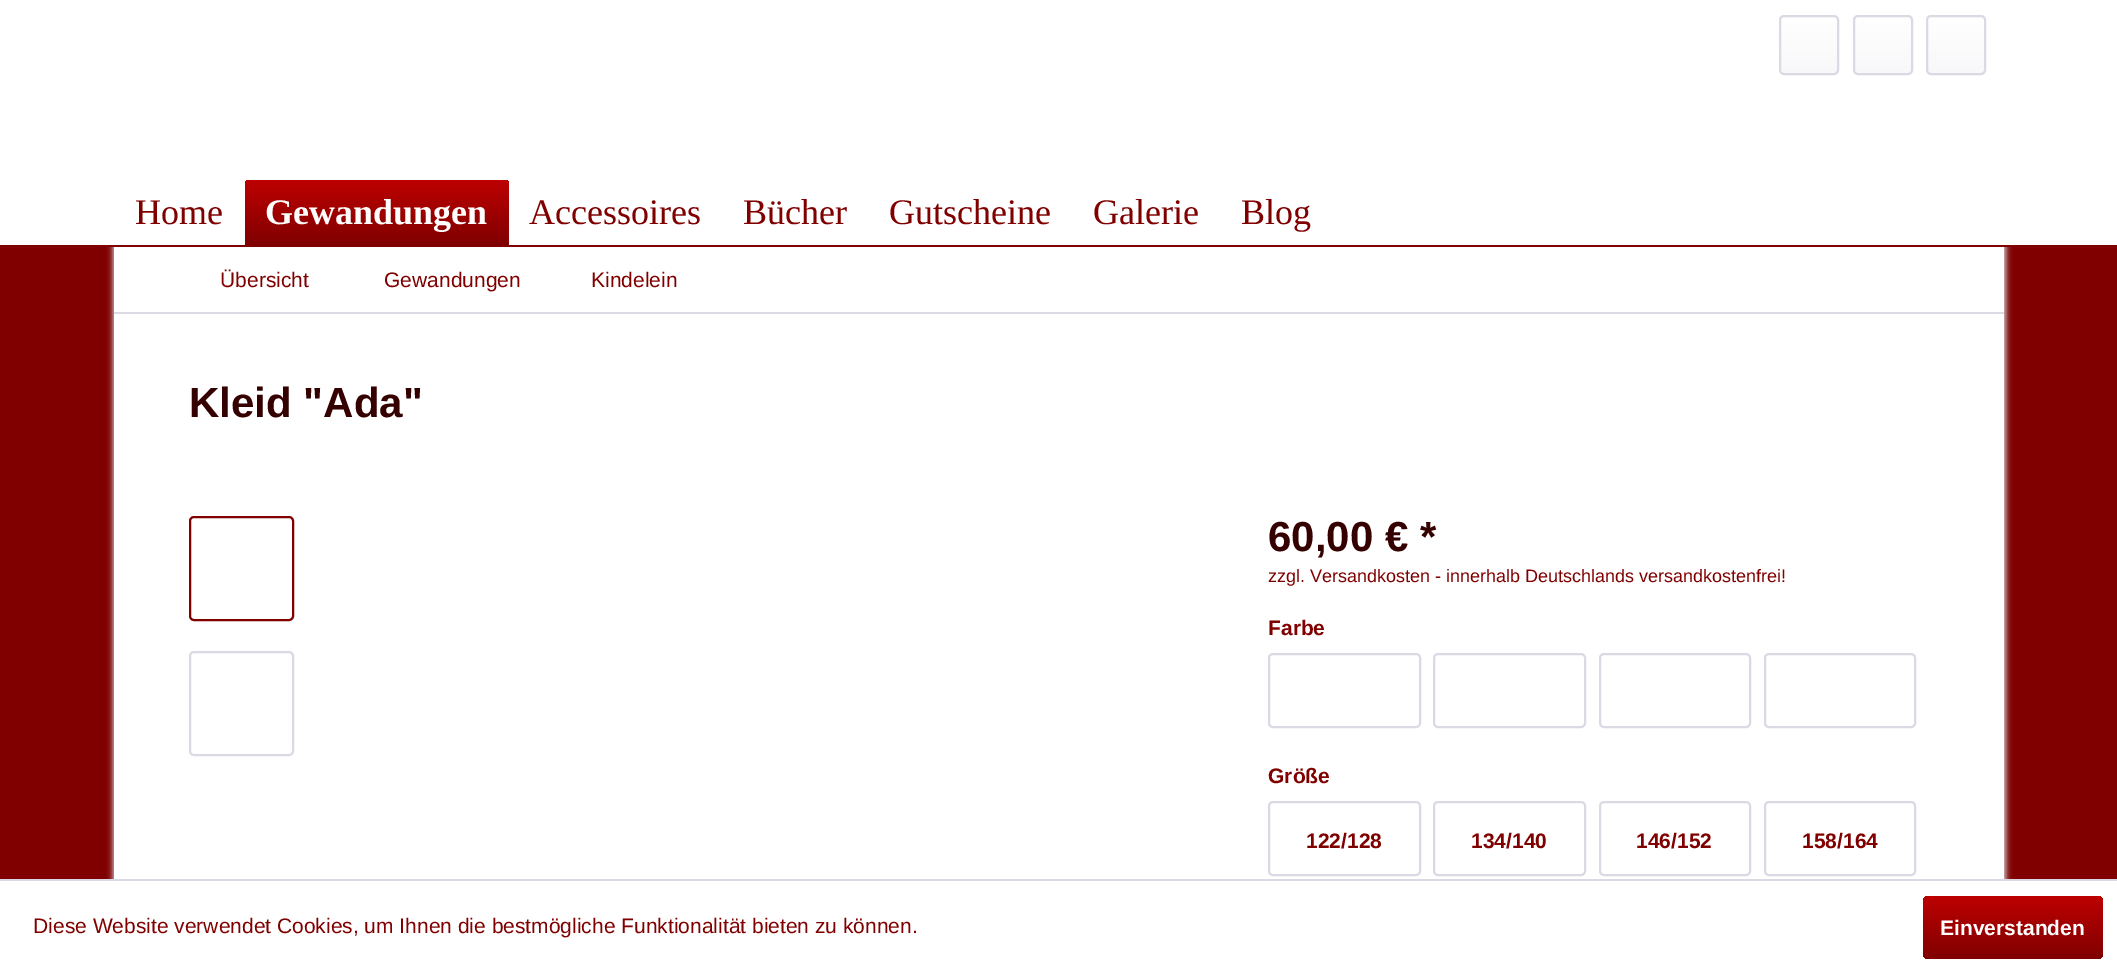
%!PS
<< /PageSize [2117 973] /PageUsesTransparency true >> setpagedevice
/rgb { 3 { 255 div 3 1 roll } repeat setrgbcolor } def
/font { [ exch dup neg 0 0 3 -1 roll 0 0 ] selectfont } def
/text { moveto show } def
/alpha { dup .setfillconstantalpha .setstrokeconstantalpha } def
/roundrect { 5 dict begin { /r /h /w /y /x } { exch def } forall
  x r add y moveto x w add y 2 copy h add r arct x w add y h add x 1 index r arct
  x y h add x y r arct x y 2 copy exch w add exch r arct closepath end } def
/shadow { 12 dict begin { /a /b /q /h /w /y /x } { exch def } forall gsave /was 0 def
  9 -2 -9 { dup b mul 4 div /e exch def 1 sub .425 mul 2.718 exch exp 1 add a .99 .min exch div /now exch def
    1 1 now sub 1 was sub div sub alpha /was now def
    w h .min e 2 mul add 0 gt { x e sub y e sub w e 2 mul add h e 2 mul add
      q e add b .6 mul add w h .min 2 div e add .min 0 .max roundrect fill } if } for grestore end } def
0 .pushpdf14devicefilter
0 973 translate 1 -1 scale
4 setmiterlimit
128 0 0 rgb
0 0 2117 973 rectfill
255 255 255 rgb
0 0 2117 180 rectfill
gsave 1781 17 57 57 3 roundrect clip newpath
<< /ShadingType 2 /ColorSpace /DeviceRGB /Coords [1809 16 1809 74] /Extend [true true] /Function << /FunctionType 2 /Domain [0 1] /C0 [1 1 1] /C1 [0.973 0.973 0.98] /N 1 >> >> shfill grestore
218 218 229 rgb
2 setlinewidth
1780 16 58 58 4 roundrect stroke
gsave 1854 17 57 57 3 roundrect clip newpath
<< /ShadingType 2 /ColorSpace /DeviceRGB /Coords [1883 16 1883 74] /Extend [true true] /Function << /FunctionType 2 /Domain [0 1] /C0 [1 1 1] /C1 [0.973 0.973 0.98] /N 1 >> >> shfill grestore
1854 16 58 58 4 roundrect stroke
gsave 1928 17 57 57 3 roundrect clip newpath
<< /ShadingType 2 /ColorSpace /DeviceRGB /Coords [1956 16 1956 74] /Extend [true true] /Function << /FunctionType 2 /Domain [0 1] /C0 [1 1 1] /C1 [0.973 0.973 0.98] /N 1 >> >> shfill grestore
1927 16 58 58 4 roundrect stroke
113 245 1893 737 0 3 1 shadow
255 255 255 rgb
0 180 2117 65 rectfill
128 0 0 rgb
107 245 1905 2 rectfill
gsave 250 180 moveto 254 0 rlineto 3 0 5 2 5 5 rcurveto 0 60 rlineto -264 0 rlineto 0 -60 rlineto 0 -3 2 -5 5 -5 rcurveto closepath clip newpath
<< /ShadingType 2 /ColorSpace /DeviceRGB /Coords [377 180 377 245] /Extend [true true] /Function << /FunctionType 2 /Domain [0 1] /C0 [0.741 0 0] /C1 [0.502 0 0] /N 1 >> >> shfill grestore
255 255 255 rgb
114 247 1890 632 rectfill
218 218 229 rgb
114 312 1890 2 rectfill
128 0 0 rgb
190 517 103 103 4 roundrect stroke
218 218 229 rgb
190 652 103 103 4 roundrect stroke
1269 654 151 73 4 roundrect stroke
1434 654 151 73 4 roundrect stroke
1600 654 150 73 4 roundrect stroke
1765 654 150 73 4 roundrect stroke
1269 802 151 73 4 roundrect stroke
1434 802 151 73 4 roundrect stroke
1600 802 150 73 4 roundrect stroke
1765 802 150 73 4 roundrect stroke
255 255 255 rgb
0 881 2117 92 rectfill
218 218 229 rgb
0 879 2117 2 rectfill
gsave 1923 896 180 63 5 roundrect clip newpath
<< /ShadingType 2 /ColorSpace /DeviceRGB /Coords [2013 896 2013 959] /Extend [true true] /Function << /FunctionType 2 /Domain [0 1] /C0 [0.741 0 0] /C1 [0.502 0 0] /N 1 >> >> shfill grestore
/LiberationSerif-Regular 36 font
128 0 0 rgb
(Home) 135 224 text
/LiberationSerif-Bold 36 font
255 255 255 rgb
(Gewandungen) 265 224 text
/LiberationSerif-Regular 36 font
128 0 0 rgb
(Accessoires) 529 224 text
(Bücher) 743 224 text
(Gutscheine) 889 224 text
(Galerie) 1093 224 text
(Blog) 1241 224 text
/LiberationSans-Regular 21 font
(Übersicht) 220 287 text
(Gewandungen) 384 287 text
(Kindelein) 591 287 text
/LiberationSans-Bold 42 font
52 0 0 rgb
(Kleid "Ada") 189 417 text
(60,00 € *) 1268 551 text
/LiberationSans-Regular 18 font
128 0 0 rgb
(zzgl. Versandkosten - innerhalb Deutschlands versandkostenfrei!) 1268 582 text
/LiberationSans-Bold 21 font
(Farbe) 1268 635 text
(Größe) 1268 783 text
(122/128) 1306 848 text
(134/140) 1471 848 text
(146/152) 1636 848 text
(158/164) 1802 848 text
/LiberationSans-Regular 21 font
(Diese Website verwendet Cookies, um Ihnen die bestmögliche Funktionalität bieten zu können.) 33 933 text
/LiberationSans-Bold 21 font
255 255 255 rgb
(Einverstanden) 1940 935 text
.poppdf14devicefilter showpage
